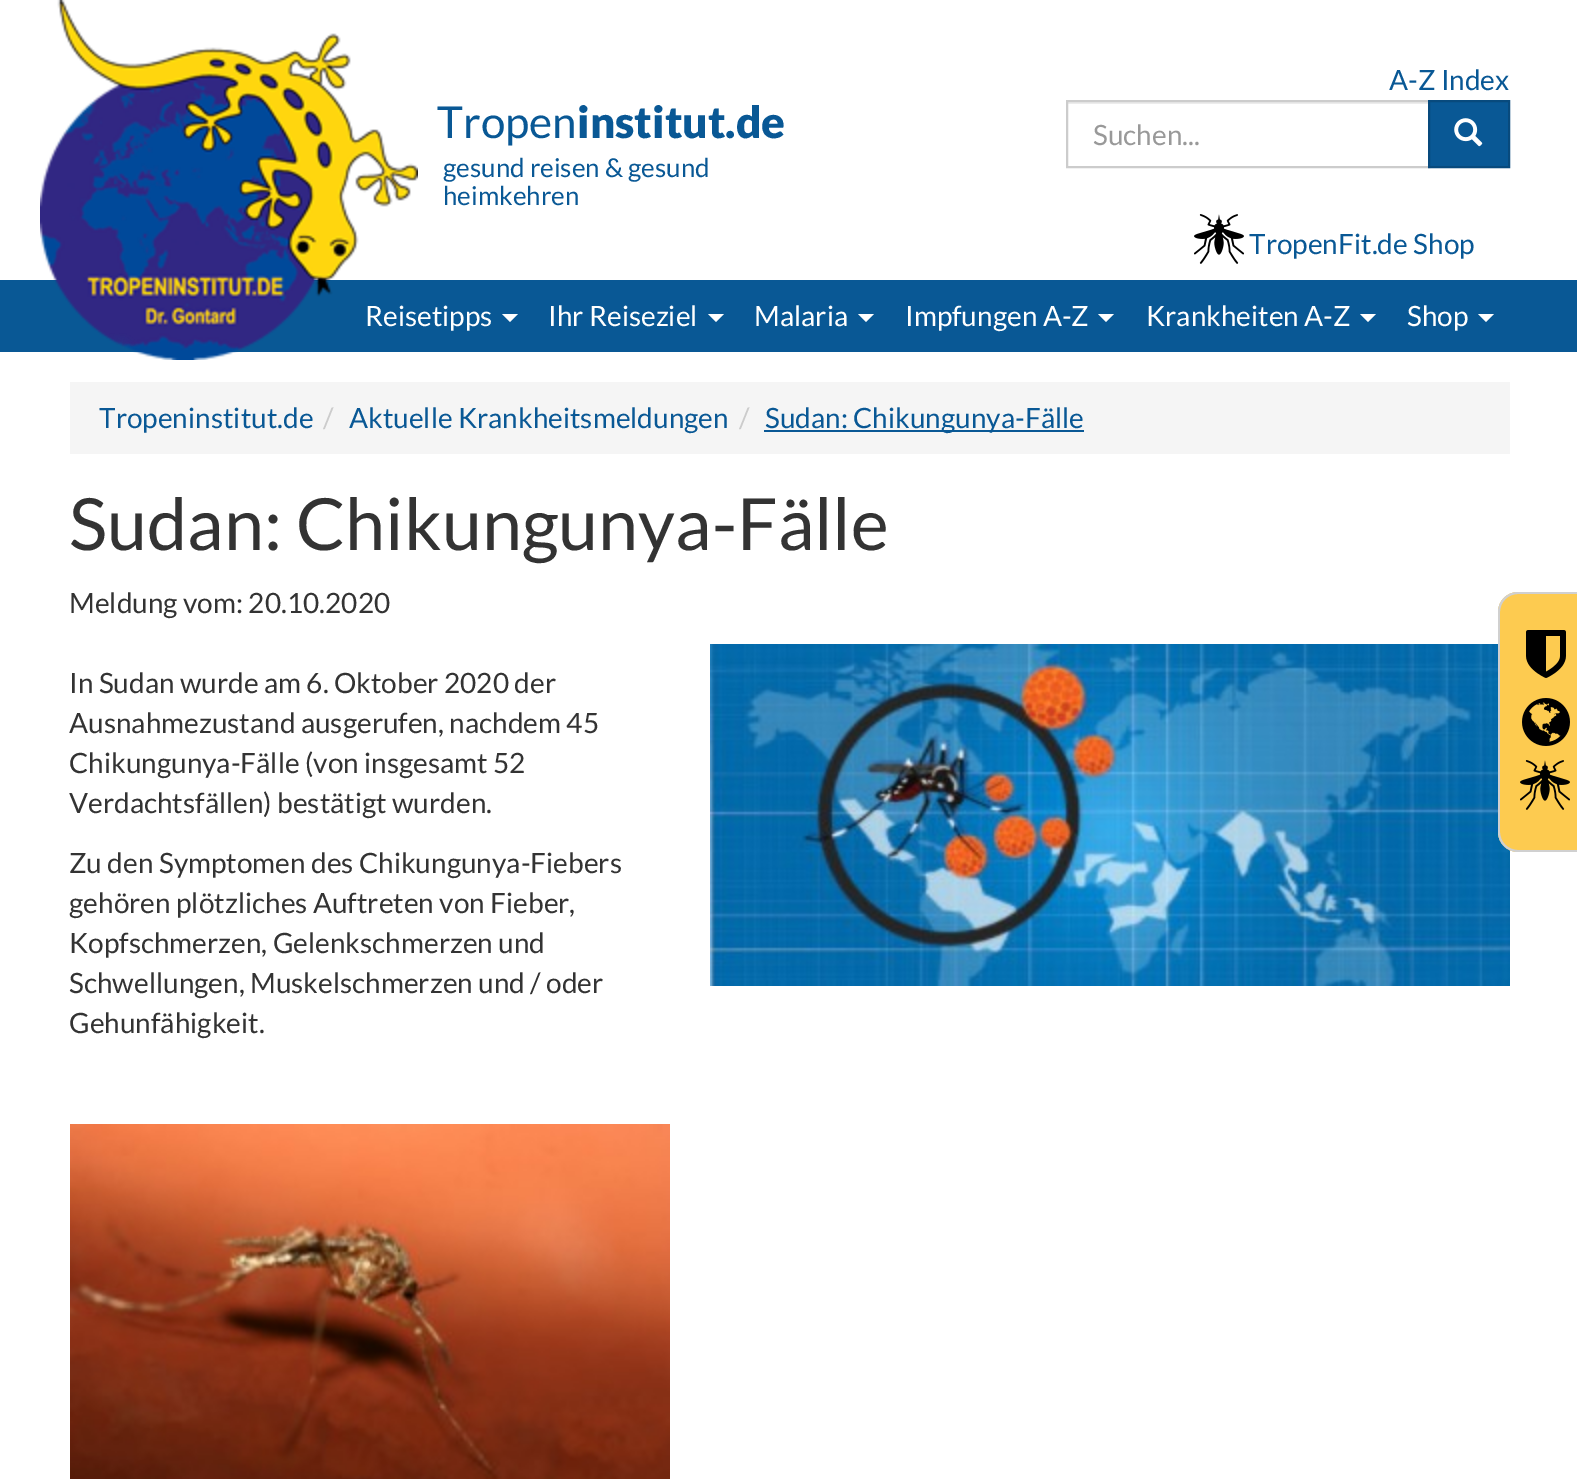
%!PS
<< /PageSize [1577 1479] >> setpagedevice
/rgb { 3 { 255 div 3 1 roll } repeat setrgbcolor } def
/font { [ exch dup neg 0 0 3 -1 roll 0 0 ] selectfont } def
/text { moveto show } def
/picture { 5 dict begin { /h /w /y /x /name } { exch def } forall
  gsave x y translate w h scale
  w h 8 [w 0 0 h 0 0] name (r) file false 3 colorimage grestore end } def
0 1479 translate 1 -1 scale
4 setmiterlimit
255 255 255 rgb
0 0 1577 1479 rectfill
9 88 149 rgb
0 280 1577 72 rectfill
(img_01.rgb) 40 0 378 360 picture
236 236 236 rgb
1068 102 360 2 rectfill
204 204 204 rgb
2 setlinewidth
1067 101 362 66 rectstroke
9 88 149 rgb
1429 101 moveto 80 0 rlineto 0 66 rlineto -80 0 rlineto closepath gsave fill grestore
8 74 125 rgb
stroke
(img_02.rgb) 1454 118 29 29 picture
(img_03.rgb) 1194 214 50 50 picture
255 255 255 rgb
502 314 moveto 16 0 rlineto -8 8 rlineto closepath fill
708 314 moveto 16 0 rlineto -8 8 rlineto closepath fill
858 314 moveto 16 0 rlineto -8 8 rlineto closepath fill
1098 314 moveto 16 0 rlineto -8 8 rlineto closepath fill
1360 314 moveto 16 0 rlineto -8 8 rlineto closepath fill
1478 314 moveto 16 0 rlineto -8 8 rlineto closepath fill
245 245 245 rgb
70 382 1440 72 rectfill
9 88 149 rgb
764 430 320 2 rectfill
(img_04.rgb) 710 644 800 342 picture
(img_05.rgb) 70 1124 600 355 picture
253 203 80 rgb
1518 592 moveto 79 0 rlineto 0 260 rlineto -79 0 rlineto -11 0 -20 -9 -20 -20 rcurveto 0 -220 rlineto 0 -11 9 -20 20 -20 rcurveto closepath fill
208 208 208 rgb
1518 592 moveto 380 0 rlineto 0 260 rlineto -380 0 rlineto -11 0 -20 -9 -20 -20 rcurveto 0 -220 rlineto 0 -11 9 -20 20 -20 rcurveto closepath 1518 594 moveto 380 0 rlineto 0 256 rlineto -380 0 rlineto -10 0 -18 -8 -18 -18 rcurveto 0 -220 rlineto 0 -10 8 -18 18 -18 rcurveto closepath eofill
(img_06.rgb) 1526 630 40 48 picture
(img_07.rgb) 1522 698 48 48 picture
(img_08.rgb) 1520 760 50 50 picture
/Lato-Regular 44 font
9 88 149 rgb
(Tropen) 437 138 text
/Lato-Black 44 font
(institut.de) 577 138 text
/Lato-Regular 26 font
(gesund reisen & gesund) 443 177 text
(heimkehren) 443 205 text
/Lato-Regular 28 font
(A-Z Index) 1389 90 text
153 153 153 rgb
(Suchen...) 1093 145 text
9 88 149 rgb
(TropenFit.de Shop) 1249 254 text
255 255 255 rgb
(Reisetipps) 365 326 text
(Ihr Reiseziel) 548 326 text
(Malaria) 754 326 text
(Impfungen A-Z) 905 326 text
(Krankheiten A-Z) 1146 326 text
(Shop) 1407 326 text
9 88 149 rgb
(Tropeninstitut.de) 99 428 text
204 204 204 rgb
(/) 323 428 text
9 88 149 rgb
(Aktuelle Krankheitsmeldungen) 349 428 text
204 204 204 rgb
(/) 739 428 text
9 88 149 rgb
(Sudan: Chikungunya-Fälle) 765 428 text
/Lato-Regular 72 font
51 51 51 rgb
(Sudan: Chikungunya-Fälle) 69 550 text
/Lato-Regular 28 font
(Meldung vom: 20.10.2020) 69 613 text
(In Sudan wurde am 6. Oktober 2020 der) 69 693 text
(Ausnahmezustand ausgerufen, nachdem 45) 69 733 text
(Chikungunya-Fälle \(von insgesamt 52) 69 773 text
(Verdachtsfällen\) bestätigt wurden.) 69 813 text
(Zu den Symptomen des Chikungunya-Fiebers) 69 873 text
(gehören plötzliches Auftreten von Fieber,) 69 913 text
(Kopfschmerzen, Gelenkschmerzen und) 69 953 text
(Schwellungen, Muskelschmerzen und / oder) 69 993 text
(Gehunfähigkeit.) 69 1033 text
showpage
